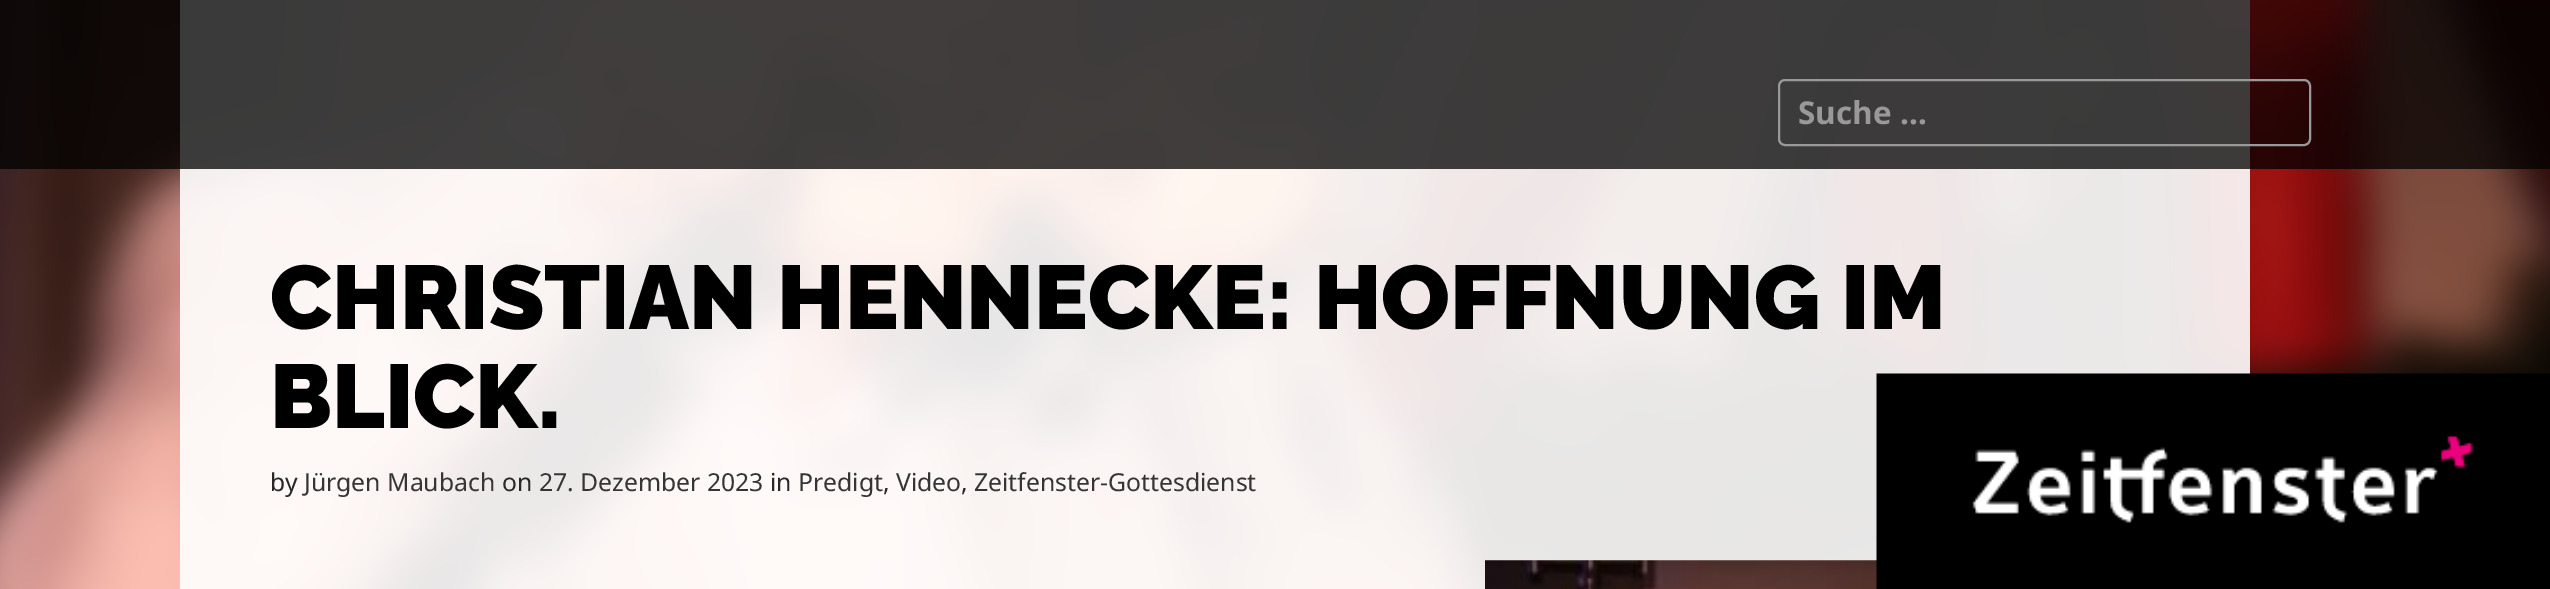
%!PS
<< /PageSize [2550 589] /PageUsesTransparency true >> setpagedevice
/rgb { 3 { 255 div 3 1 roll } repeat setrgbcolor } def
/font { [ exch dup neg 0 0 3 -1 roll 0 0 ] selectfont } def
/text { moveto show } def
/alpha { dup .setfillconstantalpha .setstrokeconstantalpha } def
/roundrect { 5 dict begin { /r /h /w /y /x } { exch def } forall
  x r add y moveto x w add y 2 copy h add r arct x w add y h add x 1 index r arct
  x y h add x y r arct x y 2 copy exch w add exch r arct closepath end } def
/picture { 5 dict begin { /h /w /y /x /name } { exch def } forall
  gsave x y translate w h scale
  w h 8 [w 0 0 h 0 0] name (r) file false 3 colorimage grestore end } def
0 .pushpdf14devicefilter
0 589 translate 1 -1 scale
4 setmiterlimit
255 255 255 rgb
0 0 2550 589 rectfill
(img_01.rgb) 0 0 2550 589 picture
0.9 alpha
180 0 2070 589 rectfill
0.75 alpha
0 0 0 rgb
0 0 2550 169 rectfill
1 alpha
153 153 153 rgb
2 setlinewidth
1779 80 531 65 6 roundrect stroke
(img_02.rgb) 1485 560 392 29 picture
(img_03.rgb) 1876 373 674 216 picture
/NotoSans-Bold 31.5 font
(Suche …) 1798 124 text
/Raleway-Thin 90 font
0 0 0 rgb
(CHRISTIAN HENNECKE: HOFFNUNG IM) 270 329 text
(BLICK.) 270 428 text
/NotoSans-Regular 24.75 font
40 40 40 rgb
(by) 270 491 text
53 53 53 rgb
(Jürgen Maubach) 304 491 text
40 40 40 rgb
(on) 502 491 text
53 53 53 rgb
(27. Dezember 2023) 539 491 text
40 40 40 rgb
(in) 770 491 text
53 53 53 rgb
(Predigt) 798 491 text
40 40 40 rgb
(,) 883 491 text
53 53 53 rgb
(Video) 896 491 text
40 40 40 rgb
(,) 961 491 text
53 53 53 rgb
(Zeitfenster-Gottesdienst) 974 491 text
.poppdf14devicefilter showpage
